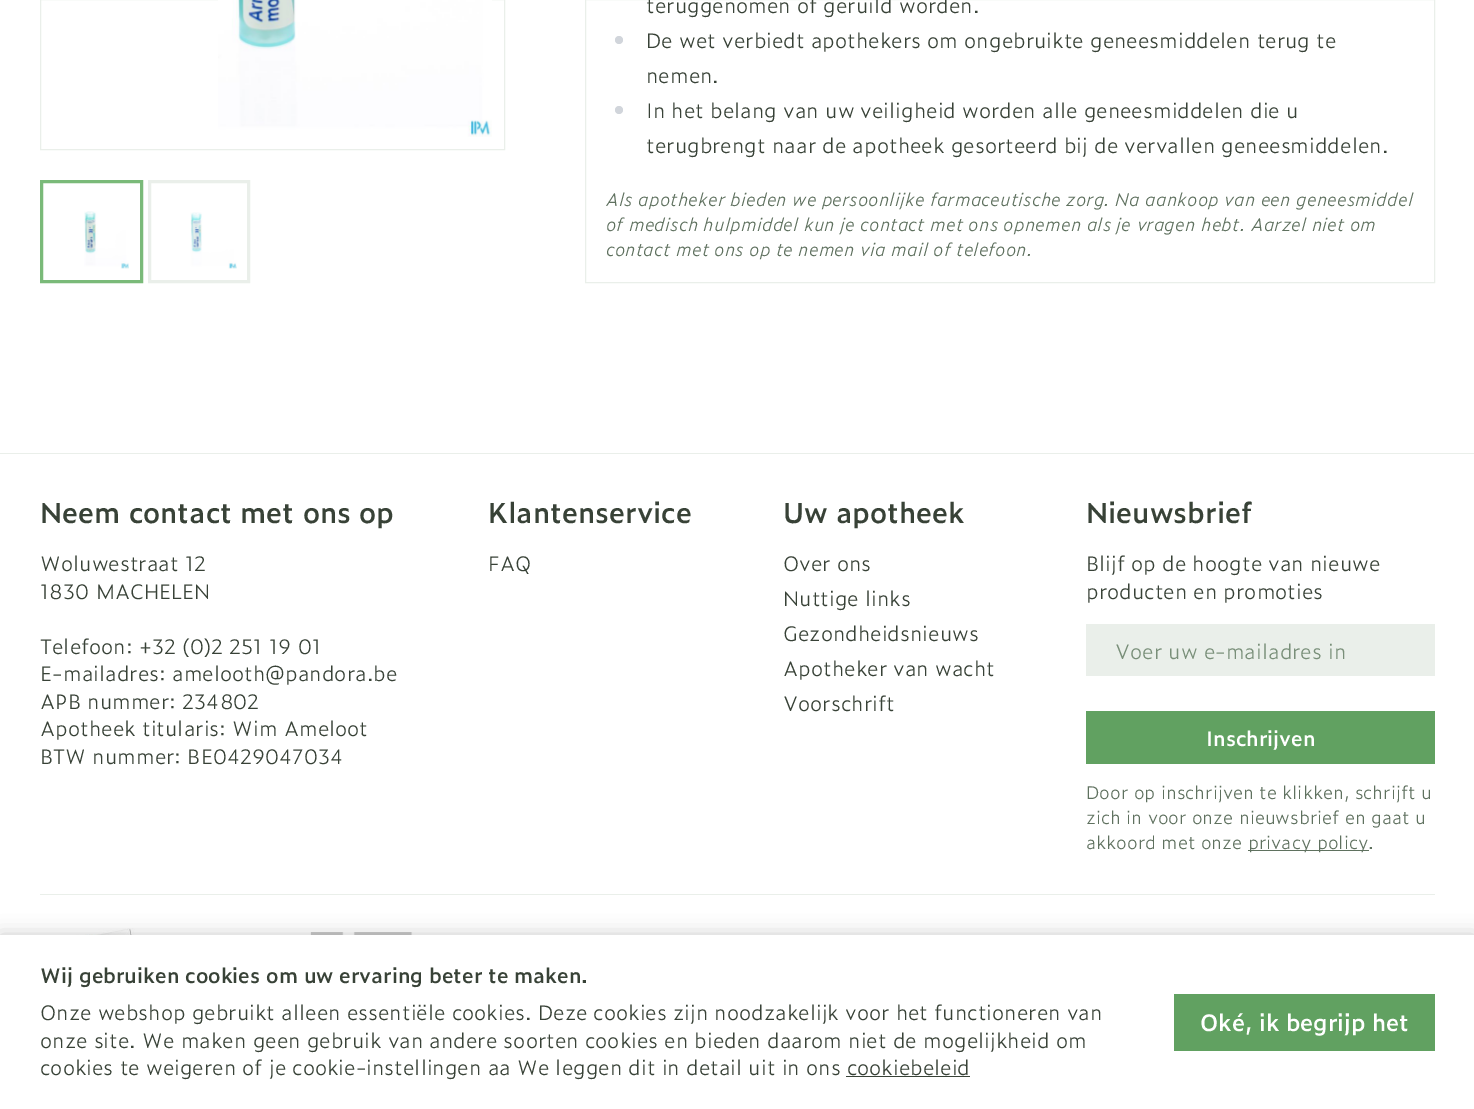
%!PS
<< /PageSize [1474 1109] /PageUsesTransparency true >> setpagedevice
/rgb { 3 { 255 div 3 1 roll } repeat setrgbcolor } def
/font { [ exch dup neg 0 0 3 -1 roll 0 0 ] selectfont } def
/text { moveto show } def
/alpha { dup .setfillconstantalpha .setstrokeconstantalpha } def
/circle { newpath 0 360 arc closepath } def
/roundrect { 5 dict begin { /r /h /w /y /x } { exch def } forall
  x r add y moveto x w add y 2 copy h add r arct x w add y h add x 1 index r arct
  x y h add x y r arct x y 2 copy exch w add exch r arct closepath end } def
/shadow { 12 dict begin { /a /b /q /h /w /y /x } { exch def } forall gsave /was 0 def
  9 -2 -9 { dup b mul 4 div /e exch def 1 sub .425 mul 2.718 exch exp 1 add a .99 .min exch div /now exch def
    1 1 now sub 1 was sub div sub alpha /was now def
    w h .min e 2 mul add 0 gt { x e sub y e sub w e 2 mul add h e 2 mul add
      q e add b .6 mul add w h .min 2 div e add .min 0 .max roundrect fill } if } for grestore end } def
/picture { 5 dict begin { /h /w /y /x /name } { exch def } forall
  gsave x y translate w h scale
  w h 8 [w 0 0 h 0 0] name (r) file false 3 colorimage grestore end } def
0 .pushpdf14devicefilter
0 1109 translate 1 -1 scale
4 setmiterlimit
255 255 255 rgb
0 0 1474 1109 rectfill
234 239 234 rgb
40.5 -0.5 464 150 rectstroke
(img_01.rgb) 218 0 274 137 picture
122 186 121 rgb
3 setlinewidth
41.5 181.5 100 100 rectstroke
(img_02.rgb) 84 211 45 58 picture
234 239 234 rgb
149.5 181.5 99 100 rectstroke
(img_03.rgb) 190 212 47 57 picture
1 setlinewidth
585.5 -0.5 849 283 rectstroke
209 213 219 rgb
619 40 4 circle fill
619 110 4 circle fill
234 239 234 rgb
0 453 1474 1 rectfill
1086 624 349 52 rectfill
97 161 97 rgb
1086 711 349 53 rectfill
95 113 95 rgb
1248 850 121 1 rectfill
234 239 234 rgb
40 894 1395 1 rectfill
(img_04.rgb) 44 928 104 7 picture
(img_05.rgb) 310 932 103 3 picture
0 0 0 rgb
0 935 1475 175 0 9.5 0.2 shadow
255 255 255 rgb
0 935 1474 174 rectfill
56 66 55 rgb
846 1076 124 1 rectfill
97 161 97 rgb
1174 994 261 57 rectfill
/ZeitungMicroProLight-Light 20 font
56 66 55 rgb
(teruggenomen of geruild worden.) 646 13 text
(De wet verbiedt apothekers om ongebruikte geneesmiddelen terug te) 646 48 text
(nemen.) 646 83 text
(In het belang van uw veiligheid worden alle geneesmiddelen die u) 646 118 text
(terugbrengt naar de apotheek gesorteerd bij de vervallen geneesmiddelen.) 646 153 text
/ZeitungMicroProLight-LightItalic 17.5 font
95 113 95 rgb
(Als apotheker bieden we persoonlijke farmaceutische zorg. Na aankoop van een geneesmiddel) 606 206 text
(of medisch hulpmiddel kun je contact met ons opnemen als je vragen hebt. Aarzel niet om) 606 231 text
(contact met ons op te nemen via mail of telefoon.) 606 256 text
/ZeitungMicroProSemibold-SemiBold 27.5 font
56 66 55 rgb
(Neem contact met ons op) 40 523 text
/ZeitungMicroProLight-Light 20 font
(Woluwestraat 12) 40 571 text
(1830 MACHELEN) 40 599 text
(Telefoon: +32 \(0\)2 251 19 01) 40 654 text
(E-mailadres: amelooth@pandora.be) 40 681 text
(APB nummer: 234802) 40 709 text
(Apotheek titularis: Wim Ameloot) 40 736 text
(BTW nummer: BE0429047034) 40 764 text
/ZeitungMicroProSemibold-SemiBold 27.5 font
(Klantenservice) 488 523 text
/ZeitungMicroProLight-Light 20 font
(FAQ) 488 571 text
/ZeitungMicroProSemibold-SemiBold 27.5 font
(Uw apotheek) 783 523 text
/ZeitungMicroProLight-Light 20 font
(Over ons) 783 571 text
(Nuttige links) 783 606 text
(Gezondheidsnieuws) 783 641 text
(Apotheker van wacht) 783 676 text
(Voorschrift) 783 711 text
/ZeitungMicroProSemibold-SemiBold 27.5 font
(Nieuwsbrief) 1086 523 text
/ZeitungMicroProLight-Light 20 font
(Blijf op de hoogte van nieuwe) 1086 571 text
(producten en promoties) 1086 599 text
121 143 121 rgb
(Voer uw e-mailadres in) 1115 659 text
/ZeitungMicroProSemibold-SemiBold 20 font
255 255 255 rgb
(Inschrijven) 1206 746 text
/ZeitungMicroProLight-Light 17.5 font
95 113 95 rgb
(Door op inschrijven te klikken, schrijft u) 1086 799 text
(zich in voor onze nieuwsbrief en gaat u) 1086 824 text
(akkoord met onze) 1086 849 text
(privacy policy.) 1248 849 text
/ZeitungMicroProSemibold-SemiBold 20 font
56 66 55 rgb
(Wij gebruiken cookies om uw ervaring beter te maken.) 40 983 text
/ZeitungMicroProLight-Light 20 font
(Onze webshop gebruikt alleen essentiële cookies. Deze cookies zijn noodzakelijk voor het functioneren van) 40 1020 text
(onze site. We maken geen gebruik van andere soorten cookies en bieden daarom niet de mogelijkheid om) 40 1048 text
(cookies te weigeren of je cookie-instellingen aa We leggen dit in detail uit in ons cookiebeleid) 40 1075 text
/ZeitungMicroProSemibold-SemiBold 22.5 font
255 255 255 rgb
(Oké, ik begrijp het) 1200 1031 text
.poppdf14devicefilter showpage
